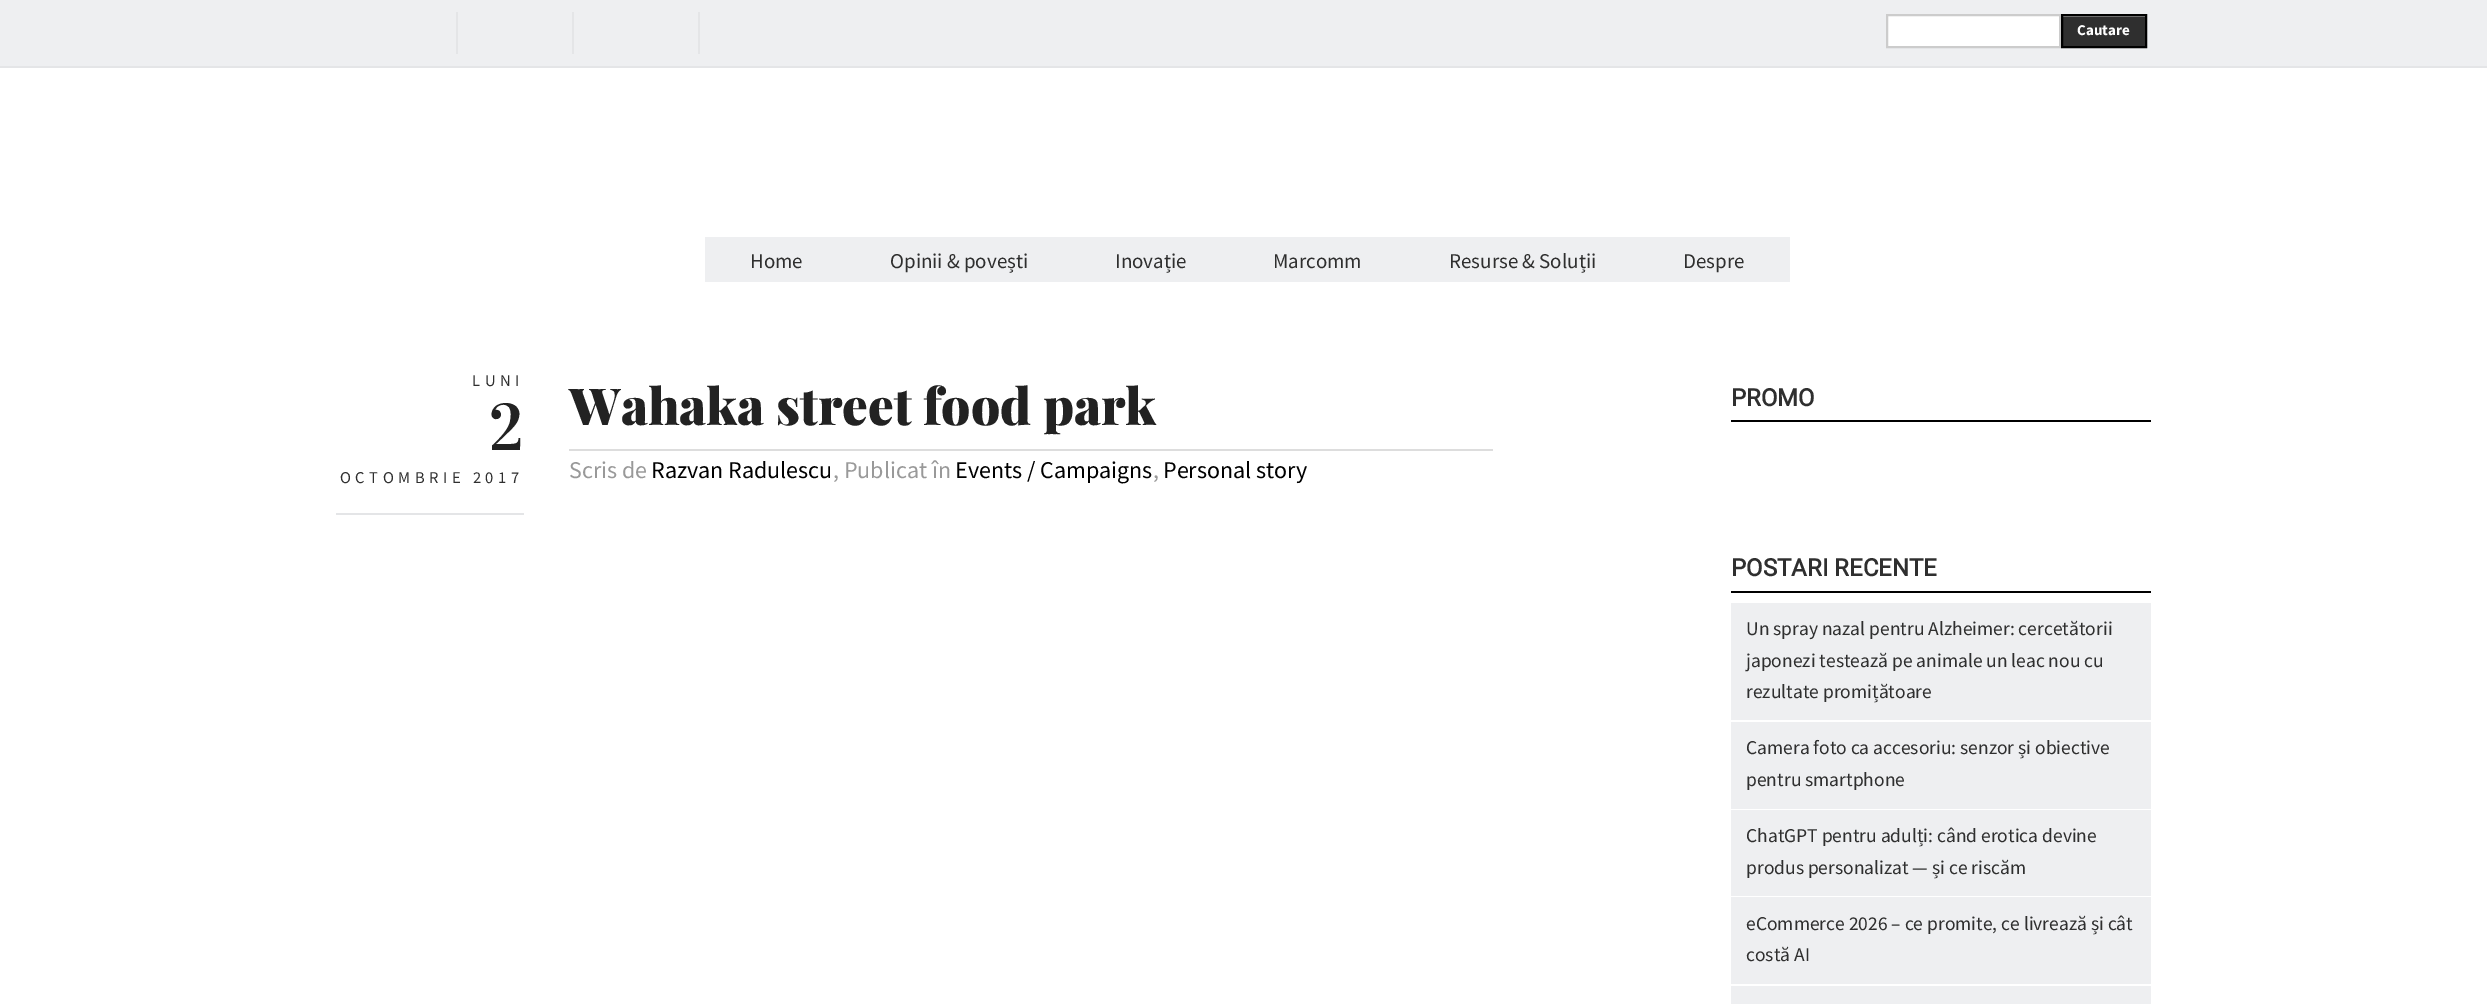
%!PS
<< /PageSize [2487 1004] >> setpagedevice
/rgb { 3 { 255 div 3 1 roll } repeat setrgbcolor } def
/font { [ exch dup neg 0 0 3 -1 roll 0 0 ] selectfont } def
/text { moveto show } def
0 1004 translate 1 -1 scale
4 setmiterlimit
255 255 255 rgb
0 0 2487 1004 rectfill
238 239 241 rgb
0 12 2487 54 rectfill
228 229 231 rgb
456 8 2 46 rectfill
572 8 2 46 rectfill
698 8 2 46 rectfill
238 239 241 rgb
0 0 2487 12 rectfill
228 229 231 rgb
0 66 2487 2 rectfill
255 255 255 rgb
1887 15 moveto 173 0 rlineto 0 32 rlineto -173 0 rlineto closepath gsave fill grestore
204 204 204 rgb
2 setlinewidth
stroke
47 47 47 rgb
2063 17 82 29 rectfill
151 151 151 rgb
2063 16 82 1 rectfill
0 0 0 rgb
2062 15 84 32 rectstroke
238 239 241 rgb
705 237 1085 45 rectfill
228 229 231 rgb
336 513 188 2 rectfill
221 221 221 rgb
569 449 924 2 rectfill
0 0 0 rgb
1731 420 420 2 rectfill
1731 591 420 2 rectfill
238 239 241 rgb
1731 603 420 117 rectfill
1731 722 420 87 rectfill
1731 810 420 86 rectfill
1731 897 420 87 rectfill
1731 986 420 18 rectfill
/SourceSansPro-Bold 15 font
255 255 255 rgb
(Cautare) 2077 35 text
/SourceSansPro-Regular 21 font
47 47 47 rgb
(Home) 750 268 text
(Opinii & povești) 890 268 text
(Inovație) 1115 268 text
(Marcomm) 1273 268 text
(Resurse & Soluții) 1449 268 text
(Despre) 1683 268 text
/SourceSansPro-Regular 16.5 font
472 386 moveto 4.5 0 (LUNI) ashow
/Vidaloka-Regular 66 font
34 34 34 rgb
(2) 489 450 text
/SourceSansPro-Regular 16.5 font
47 47 47 rgb
340 483 moveto 4.5 0 (OCTOMBRIE 2017) ashow
/PlayfairDisplay-Black 51 font
34 34 34 rgb
(Wahaka street food park) 569 425 text
/SourceSansPro-Regular 24 font
153 153 153 rgb
(Scris de) 569 478 text
0 0 0 rgb
(Razvan Radulescu) 651 478 text
153 153 153 rgb
(, Publicat în) 833 478 text
0 0 0 rgb
(Events / Campaigns) 955 478 text
153 153 153 rgb
(,) 1153 478 text
0 0 0 rgb
(Personal story) 1163 478 text
/Roboto-Bold 24 font
47 47 47 rgb
(PROMO) 1731 406 text
(POSTARI RECENTE) 1731 576 text
/SourceSansPro-Regular 19.5 font
(Un spray nazal pentru Alzheimer: cercetătorii) 1746 635 text
(japonezi testează pe animale un leac nou cu) 1746 667 text
(rezultate promițătoare) 1746 698 text
(Camera foto ca accesoriu: senzor și obiective) 1746 754 text
(pentru smartphone) 1746 786 text
(ChatGPT pentru adulți: când erotica devine) 1746 842 text
(produs personalizat — și ce riscăm) 1746 874 text
(eCommerce 2026 – ce promite, ce livrează și cât) 1746 930 text
(costă AI) 1746 961 text
showpage
